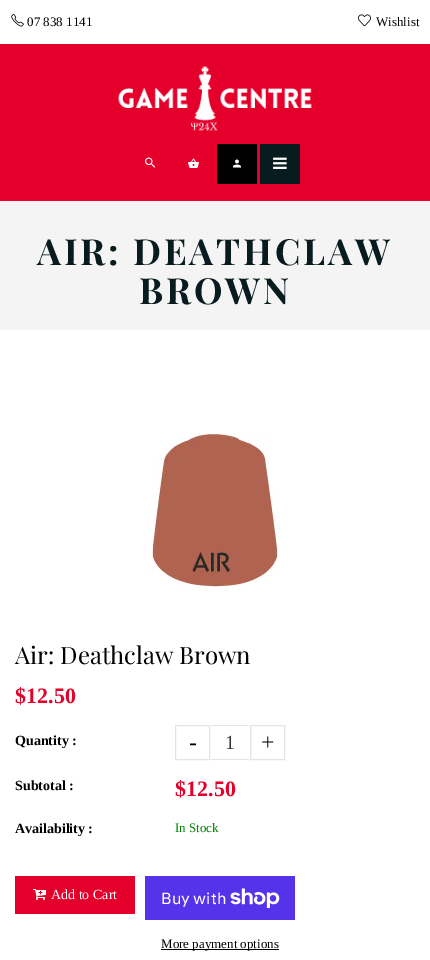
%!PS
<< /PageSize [430 960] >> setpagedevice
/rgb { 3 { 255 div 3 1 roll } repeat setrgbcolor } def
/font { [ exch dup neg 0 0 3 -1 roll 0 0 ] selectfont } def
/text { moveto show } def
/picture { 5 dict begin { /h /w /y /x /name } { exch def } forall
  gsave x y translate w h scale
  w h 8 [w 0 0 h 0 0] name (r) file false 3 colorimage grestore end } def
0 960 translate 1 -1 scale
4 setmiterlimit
255 255 255 rgb
0 0 430 960 rectfill
(img_01.rgb) 11 14 13 13 picture
(img_02.rgb) 358 14 13 13 picture
228 0 43 rgb
0 44 430 157 rectfill
(img_03.rgb) 118 66 194 65 picture
(img_04.rgb) 145 157 11 11 picture
(img_05.rgb) 188 158 11 10 picture
0 0 0 rgb
217 144 40 40 rectfill
(img_06.rgb) 233 159 8 9 picture
8 27 31 rgb
260 144 40 40 rectfill
(img_07.rgb) 273 157 14 12 picture
244 244 244 rgb
0 201 430 129 rectfill
(img_08.rgb) 149 431 129 160 picture
228 228 228 rgb
175.5 725.5 34 34 rectstroke
211 725 38 1 rectfill
211 759 38 1 rectfill
250.5 725.5 34 34 rectstroke
228 0 43 rgb
15 876 120 38 rectfill
(img_09.rgb) 33 889 13 11 picture
84 51 235 rgb
145 876 150 44 rectfill
(img_10.rgb) 230 888 50 20 picture
0 0 0 rgb
161 949 118 1 rectfill
/LiberationSerif-Regular 13 font
(07 838 1141) 27 26 text
(Wishlist) 376 26 text
/PlayfairDisplay-Bold 36 font
8 27 31 rgb
37 265 moveto 2.9 0 (AIR: DEATHCLAW) ashow
139 304 moveto 2.9 0 (BROWN) ashow
/PlayfairDisplay-Regular 24 font
0 0 0 rgb
(Air: Deathclaw Brown) 15 664 text
/LiberationSerif-Bold 22 font
228 0 43 rgb
($12.50) 15 703 text
/LiberationSerif-Bold 14 font
0 0 0 rgb
(Quantity :) 15 745 text
/LiberationSerif-Regular 24 font
(-) 189 750 text
/LiberationSerif-Regular 20 font
51 51 51 rgb
(1) 225 749 text
/LiberationSerif-Regular 24 font
0 0 0 rgb
(+) 261 750 text
/LiberationSerif-Bold 14 font
(Subtotal :) 15 790 text
/LiberationSerif-Bold 22 font
228 0 43 rgb
($12.50) 175 796 text
/LiberationSerif-Bold 14 font
0 0 0 rgb
(Availability :) 15 833 text
/LiberationSerif-Regular 13 font
0 128 0 rgb
(In Stock) 175 832 text
/LiberationSerif-Regular 14 font
255 255 255 rgb
(Add to Cart) 51 899 text
/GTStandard-Regular 16 font
(Buy with) 161 904 text
/LiberationSerif-Regular 13 font
0 0 0 rgb
(More payment options) 161 948 text
showpage
